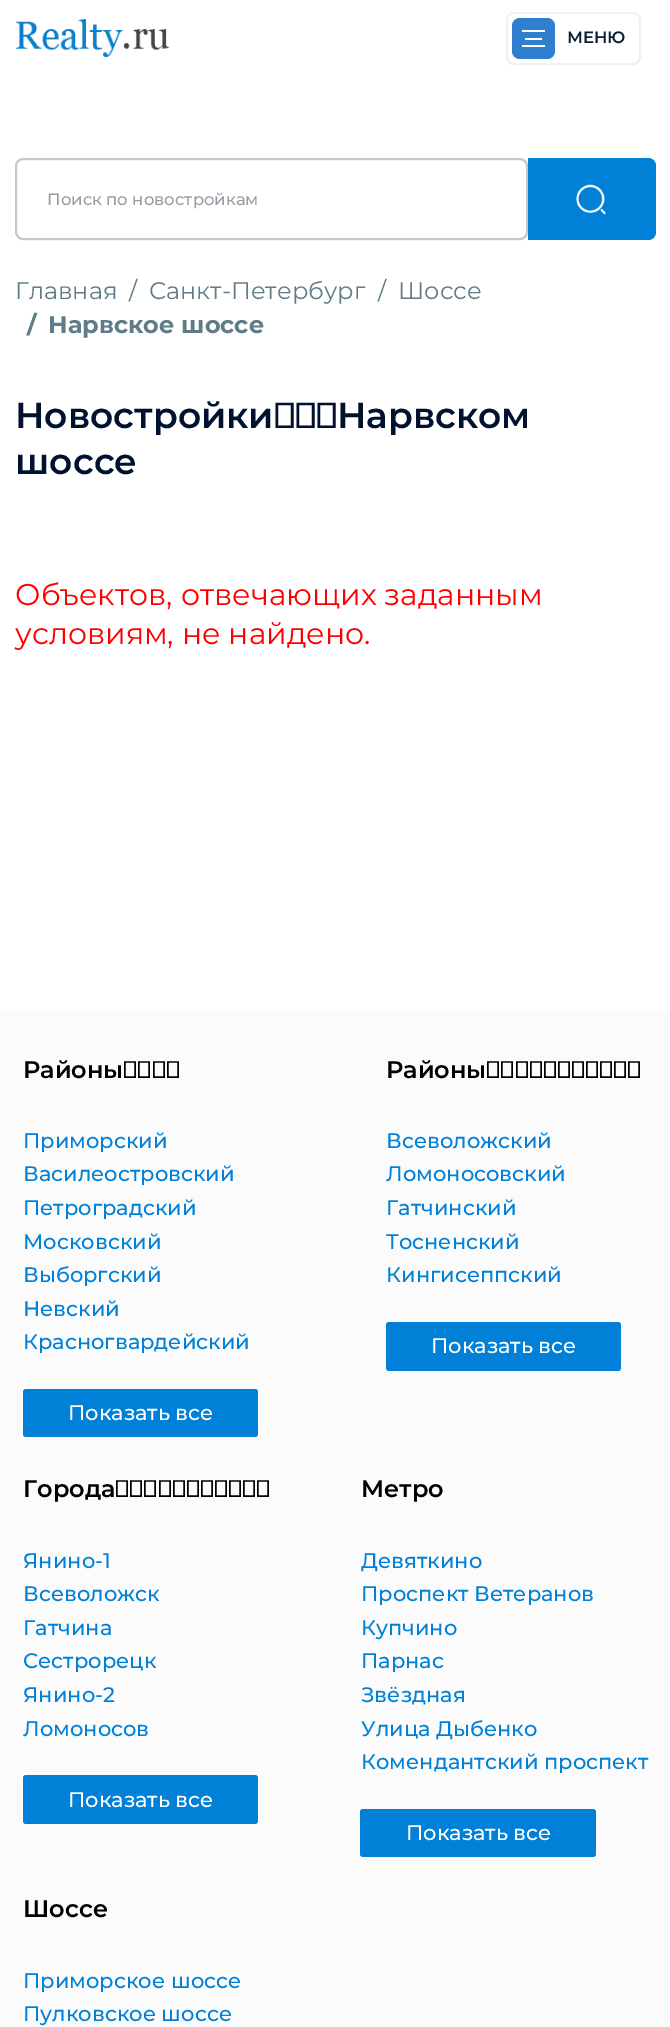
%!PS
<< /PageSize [670 2027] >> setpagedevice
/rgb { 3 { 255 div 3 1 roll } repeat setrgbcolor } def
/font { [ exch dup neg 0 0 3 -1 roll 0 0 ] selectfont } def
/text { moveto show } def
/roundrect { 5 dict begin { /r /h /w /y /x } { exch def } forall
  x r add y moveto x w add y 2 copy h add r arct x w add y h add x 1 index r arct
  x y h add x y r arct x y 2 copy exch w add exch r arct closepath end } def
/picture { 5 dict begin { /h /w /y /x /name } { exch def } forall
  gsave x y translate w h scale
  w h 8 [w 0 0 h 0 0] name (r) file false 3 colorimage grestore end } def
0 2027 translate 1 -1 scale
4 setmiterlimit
255 255 255 rgb
0 0 670 2027 rectfill
(img_01.rgb) 16 19 154 38 picture
234 242 250 rgb
2 setlinewidth
507 13 133 51 7 roundrect stroke
48 127 207 rgb
512 18 43 41 8 roundrect fill
255 255 255 rgb
522 30 23 2 rectfill
525 38 17 2 rectfill
522 45 23 2 rectfill
200 200 200 rgb
16 159 511 80 7 roundrect stroke
0 129 215 rgb
528 158 moveto 120 0 rlineto 4.5 0 8 3.5 8 8 rcurveto 0 66 rlineto 0 4.5 -3.5 8 -8 8 rcurveto -120 0 rlineto closepath fill
(img_02.rgb) 576 184 30 31 picture
251 251 251 rgb
0 1010 670 1017 rectfill
0 129 215 rgb
23 1389 235 48 3 roundrect fill
386 1322 235 49 3 roundrect fill
23 1775 235 49 3 roundrect fill
360 1809 236 48 3 roundrect fill
/Montserrat-SemiBold 16.5 font
11 31 53 rgb
(МЕНЮ) 567 43 text
/Montserrat-Medium 16.5 font
152 157 164 rgb
(Поиск по новостройкам) 47 205 text
/Montserrat-Regular 24 font
96 123 137 rgb
(Главная) 15 299 text
(/) 129 299 text
(Санкт-Петербург) 149 299 text
(/) 378 299 text
(Шоссе) 398 299 text
/Montserrat-Bold 24 font
(/) 27 333 text
(Нарвское шоссе) 48 333 text
/Montserrat-SemiBold 36 font
0 18 48 rgb
(Новостройки на Нарвском) 15 428 text
(шоссе) 15 474 text
/Montserrat-Regular 30 font
255 0 0 rgb
(Объектов, отвечающих заданным) 15 605 text
(условиям, не найдено.) 15 644 text
/Montserrat-SemiBold 24 font
0 0 0 rgb
(Районы СПб) 23 1078 text
/Montserrat-Medium 21 font
0 129 215 rgb
(Приморский) 23 1148 text
(Василеостровский) 23 1181 text
(Петроградский) 23 1215 text
(Московский) 23 1249 text
(Выборгский) 23 1282 text
(Невский) 23 1316 text
(Красногвардейский) 23 1349 text
255 255 255 rgb
(Показать все) 68 1420 text
/Montserrat-SemiBold 24 font
0 0 0 rgb
(Районы Ленобласти) 386 1078 text
/Montserrat-Medium 21 font
0 129 215 rgb
(Всеволожский) 386 1148 text
(Ломоносовский) 386 1181 text
(Гатчинский) 386 1215 text
(Тосненский) 386 1249 text
(Кингисеппский) 386 1282 text
255 255 255 rgb
(Показать все) 431 1353 text
/Montserrat-SemiBold 24 font
0 0 0 rgb
(Города Ленобласти) 23 1497 text
/Montserrat-Medium 21 font
0 129 215 rgb
(Янино-1) 23 1568 text
(Всеволожск) 23 1601 text
(Гатчина) 23 1635 text
(Сестрорецк) 23 1668 text
(Янино-2) 23 1702 text
(Ломоносов) 23 1736 text
255 255 255 rgb
(Показать все) 68 1807 text
/Montserrat-SemiBold 24 font
0 0 0 rgb
(Метро) 361 1497 text
/Montserrat-Medium 21 font
0 129 215 rgb
(Девяткино) 361 1568 text
(Проспект Ветеранов) 361 1601 text
(Купчино) 361 1635 text
(Парнас) 361 1668 text
(Звёздная) 361 1702 text
(Улица Дыбенко) 361 1736 text
(Комендантский проспект) 361 1769 text
255 255 255 rgb
(Показать все) 406 1840 text
/Montserrat-SemiBold 24 font
0 0 0 rgb
(Шоссе) 23 1917 text
/Montserrat-Medium 21 font
0 129 215 rgb
(Приморское шоссе) 23 1988 text
(Пулковское шоссе) 23 2021 text
showpage
